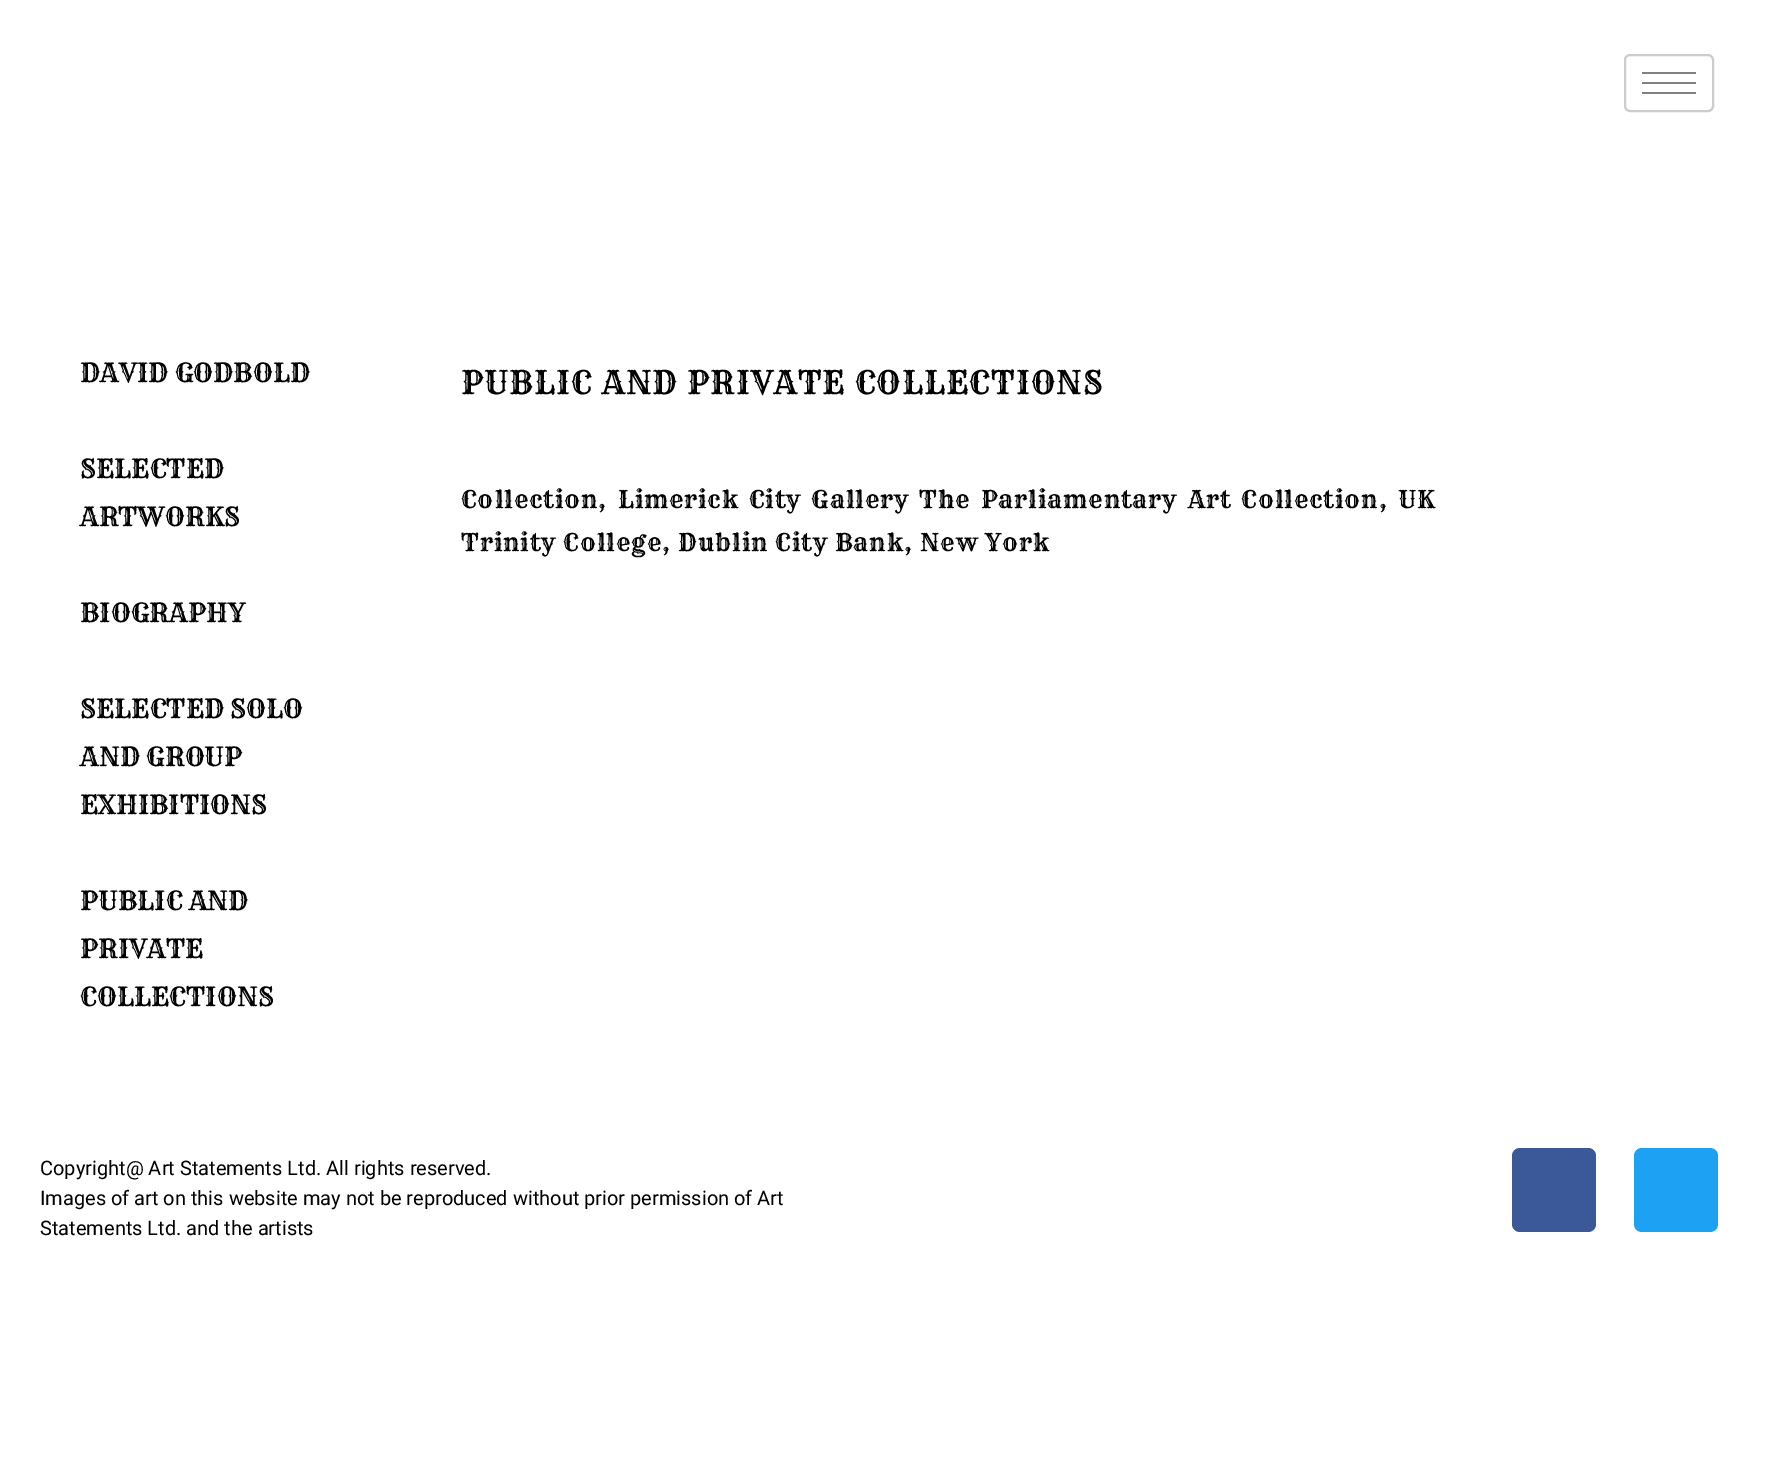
%!PS
<< /PageSize [1765 1459] >> setpagedevice
/rgb { 3 { 255 div 3 1 roll } repeat setrgbcolor } def
/font { [ exch dup neg 0 0 3 -1 roll 0 0 ] selectfont } def
/text { moveto show } def
/roundrect { 5 dict begin { /r /h /w /y /x } { exch def } forall
  x r add y moveto x w add y 2 copy h add r arct x w add y h add x 1 index r arct
  x y h add x y r arct x y 2 copy exch w add exch r arct closepath end } def
0 1459 translate 1 -1 scale
4 setmiterlimit
255 255 255 rgb
0 0 1765 1459 rectfill
204 204 204 rgb
2 setlinewidth
1625 55 88 56 5 roundrect stroke
128 128 128 rgb
1642 72 54 2 rectfill
1642 82 54 2 rectfill
1642 92 54 2 rectfill
59 89 152 rgb
1512 1148 84 84 8 roundrect fill
29 161 242 rgb
1634 1148 84 84 8 roundrect fill
/Rye-Regular 26 font
0 0 0 rgb
(DAVID GODBOLD) 80 382 text
(SELECTED) 80 478 text
(ARTWORKS) 80 526 text
(BIOGRAPHY) 80 622 text
(SELECTED SOLO) 80 718 text
(AND GROUP) 80 766 text
(EXHIBITIONS) 80 814 text
(PUBLIC AND) 80 910 text
(PRIVATE) 80 958 text
(COLLECTIONS) 80 1006 text
/Rye-Regular 32 font
461 394 moveto 1 0 (PUBLIC AND PRIVATE COLLECTIONS) ashow
/Rye-Regular 24 font
461 508 moveto 3.25 0 32 1 0 (Collection, Limerick City Gallery The Parliamentary Art Collection, UK) awidthshow
461 551 moveto 1 0 (Trinity College, Dublin City Bank, New York) ashow
/Roboto-Regular 20 font
(Copyright@ Art Statements Ltd. All rights reserved.) 40 1175 text
(Images of art on this website may not be reproduced without prior permission of Art) 40 1205 text
(Statements Ltd. and the artists) 40 1235 text
showpage
